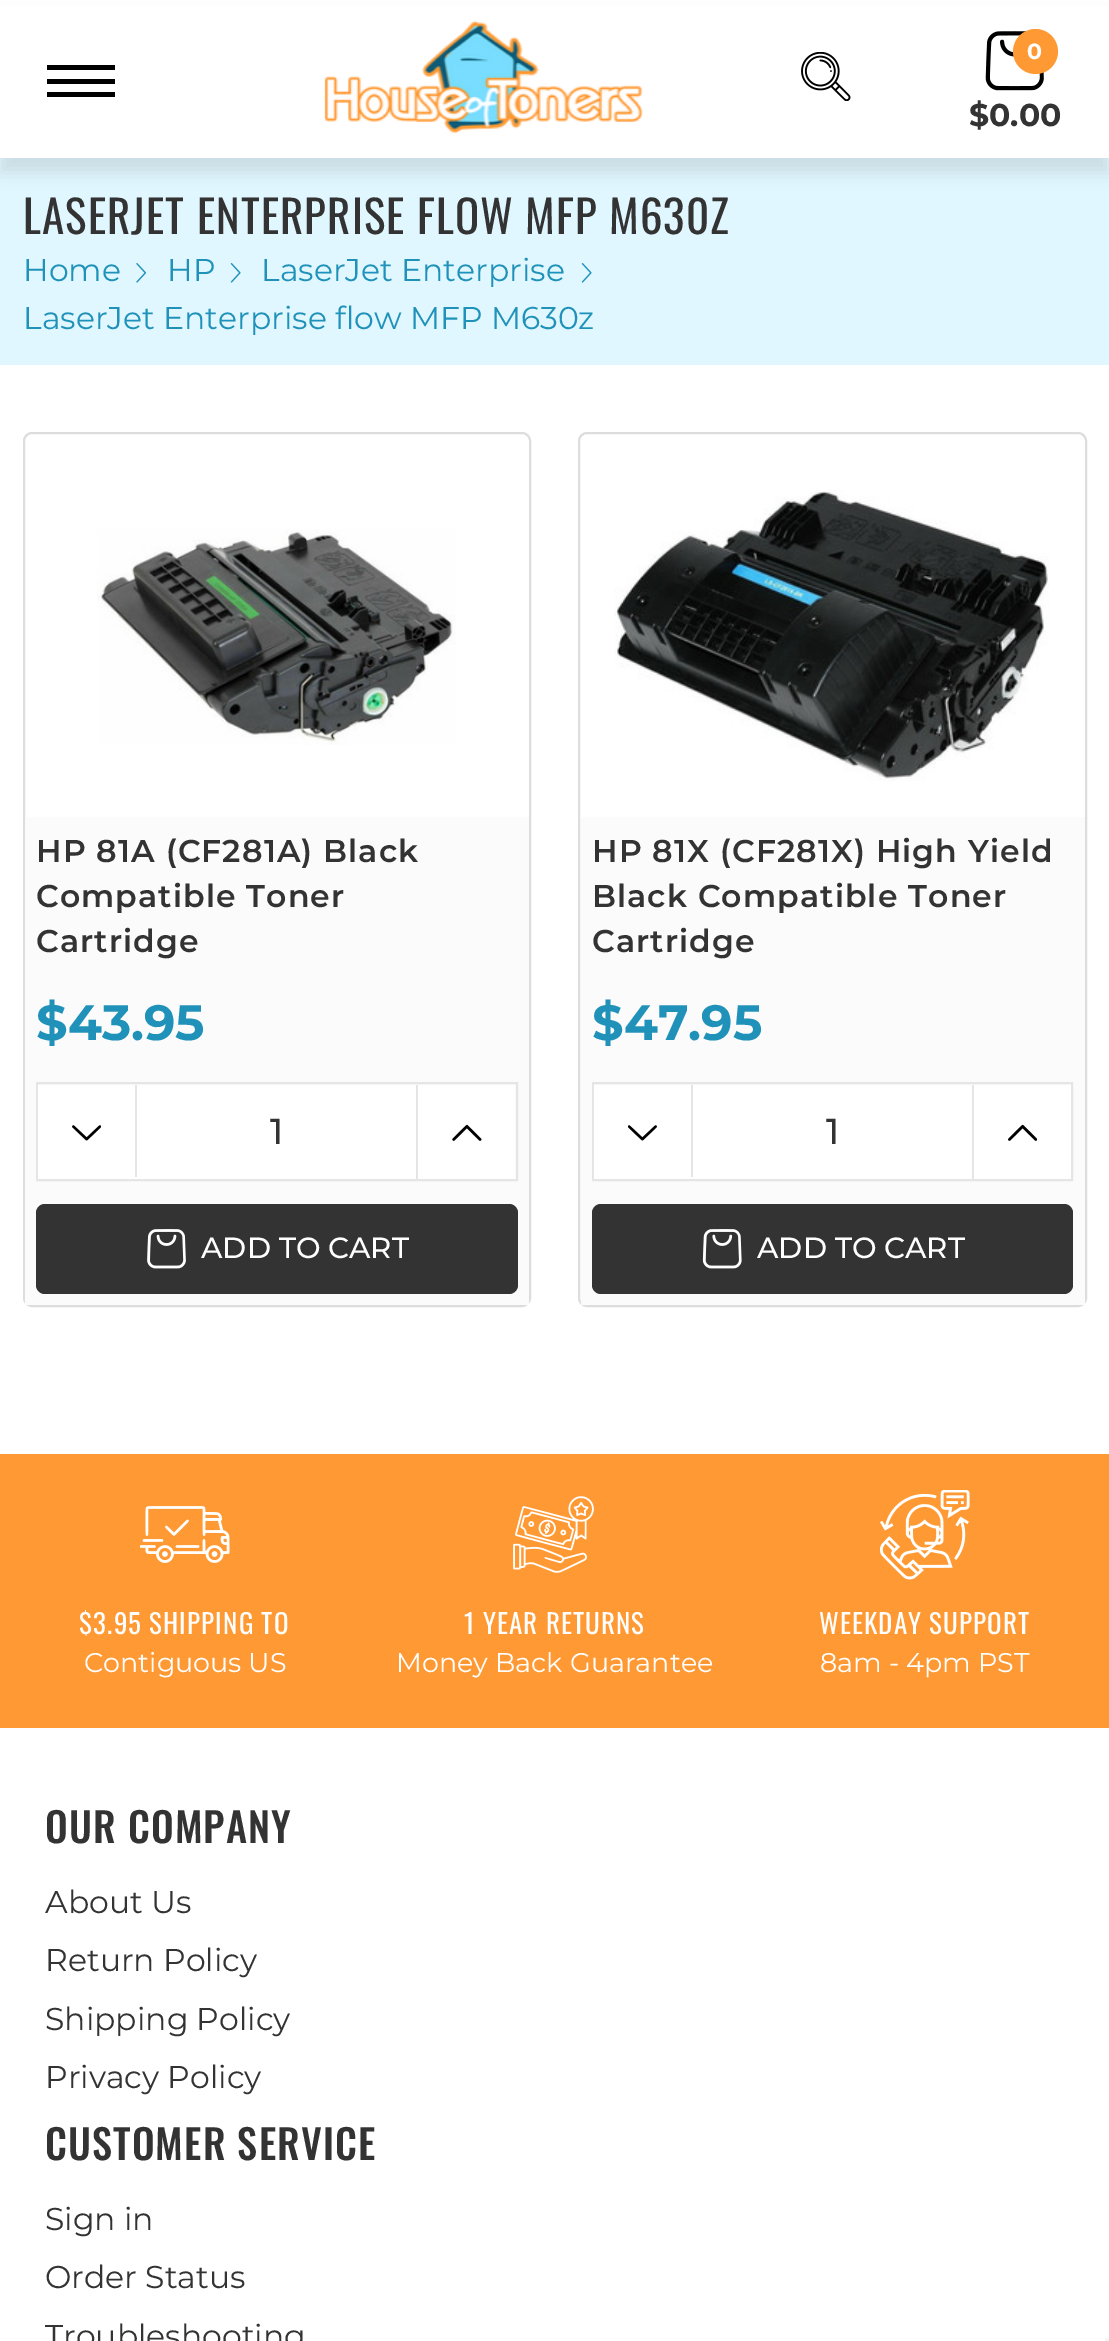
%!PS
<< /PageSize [1109 2341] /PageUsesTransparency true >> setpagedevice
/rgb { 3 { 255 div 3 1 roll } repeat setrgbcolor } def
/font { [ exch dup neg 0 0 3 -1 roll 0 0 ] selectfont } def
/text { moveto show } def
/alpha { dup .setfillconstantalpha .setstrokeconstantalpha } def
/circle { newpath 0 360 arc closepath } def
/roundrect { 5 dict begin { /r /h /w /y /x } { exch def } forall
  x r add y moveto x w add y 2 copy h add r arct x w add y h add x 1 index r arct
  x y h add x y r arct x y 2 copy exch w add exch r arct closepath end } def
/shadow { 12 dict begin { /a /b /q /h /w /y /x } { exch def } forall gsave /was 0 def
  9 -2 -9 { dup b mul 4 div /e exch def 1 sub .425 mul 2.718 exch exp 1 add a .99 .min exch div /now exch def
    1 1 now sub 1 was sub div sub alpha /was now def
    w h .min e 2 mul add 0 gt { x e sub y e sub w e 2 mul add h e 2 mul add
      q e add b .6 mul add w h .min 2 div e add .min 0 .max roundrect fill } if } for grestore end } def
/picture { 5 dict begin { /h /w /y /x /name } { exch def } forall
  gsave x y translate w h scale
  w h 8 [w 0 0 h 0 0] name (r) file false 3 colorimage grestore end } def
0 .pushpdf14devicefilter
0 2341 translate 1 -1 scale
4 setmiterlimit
255 255 255 rgb
0 0 1109 2341 rectfill
224 247 255 rgb
0 158 1109 207 rectfill
0 0 0 rgb
0 16 1109 157 0 8 0.1 shadow
255 255 255 rgb
0 6 1109 152 rectfill
0 0 0 rgb
47 65 68 5 rectfill
47 79 68 5 rectfill
47 92 68 5 rectfill
(img_01.rgb) 324 20 319 113 picture
(img_02.rgb) 801 52 50 49 picture
(img_03.rgb) 985 31 59 60 picture
255 153 51 rgb
1035.5 51.5 22.5 circle fill
(img_04.rgb) 136 263 11 20 picture
(img_05.rgb) 230 263 11 20 picture
(img_05.rgb) 581 263 11 20 picture
221 221 221 rgb
2 setlinewidth
24 433 506 873 8 roundrect stroke
(img_06.rgb) 97 529 359 216 picture
251 251 251 rgb
25 817 504 488 rectfill
229 229 229 rgb
37 1083 480 97 rectstroke
255 255 255 rgb
38 1085 477 94 rectfill
229 229 229 rgb
135 1085 2 92 rectfill
(img_07.rgb) 72 1125 29 16 picture
416 1085 2 96 rectfill
(img_08.rgb) 452 1124 30 17 picture
51 51 51 rgb
36 1204 482 90 9 roundrect fill
(img_09.rgb) 147 1229 39 40 picture
221 221 221 rgb
579 433 507 873 8 roundrect stroke
(img_10.rgb) 614 490 435 291 picture
251 251 251 rgb
581 817 504 488 rectfill
229 229 229 rgb
593 1083 479 97 rectstroke
255 255 255 rgb
594 1085 477 94 rectfill
229 229 229 rgb
691 1085 2 92 rectfill
(img_11.rgb) 628 1125 29 16 picture
972 1085 2 96 rectfill
(img_12.rgb) 1008 1124 29 17 picture
51 51 51 rgb
592 1204 481 90 9 roundrect fill
(img_13.rgb) 702 1229 40 40 picture
255 153 51 rgb
0 1454 1109 274 rectfill
(img_14.rgb) 140 1506 90 57 picture
(img_15.rgb) 513 1496 81 77 picture
(img_16.rgb) 880 1490 90 90 picture
245 245 245 rgb
1105 2338 4 3 rectfill
/Montserrat-Bold 22 font
255 255 255 rgb
(0) 1027 59 text
/Montserrat-Bold 31.5 font
51 51 51 rgb
($0.00) 969 126 text
/Oswald-Regular 45 font
23 234 moveto 1.1 0 (LASERJET ENTERPRISE FLOW MFP M630Z) ashow
/Montserrat-Regular 31.5 font
32 146 185 rgb
(Home) 23 281 text
(HP) 167 281 text
(LaserJet Enterprise) 261 281 text
(LaserJet Enterprise flow MFP M630z) 23 329 text
/Montserrat-SemiBold 31.5 font
51 51 51 rgb
36 862 moveto 1.1 0 (HP 81A \(CF281A\) Black) ashow
36 907 moveto 1.1 0 (Compatible Toner) ashow
36 952 moveto 1.1 0 (Cartridge) ashow
/Montserrat-Bold 49.5 font
32 146 185 rgb
($43.95) 36 1040 text
/Montserrat-Medium 36 font
51 51 51 rgb
(1) 270 1144 text
/Montserrat-Medium 29.25 font
255 255 255 rgb
(ADD TO CART) 201 1258 text
/Montserrat-SemiBold 31.5 font
51 51 51 rgb
592 862 moveto 1.1 0 (HP 81X \(CF281X\) High Yield) ashow
592 907 moveto 1.1 0 (Black Compatible Toner) ashow
592 952 moveto 1.1 0 (Cartridge) ashow
/Montserrat-Bold 49.5 font
32 146 185 rgb
($47.95) 592 1040 text
/Montserrat-Medium 36 font
51 51 51 rgb
(1) 826 1144 text
/Montserrat-Medium 29.25 font
255 255 255 rgb
(ADD TO CART) 757 1258 text
/Oswald-Regular 27 font
79 1634 moveto 1.1 0 ($3.95 SHIPPING TO) ashow
/Montserrat-Regular 27 font
(Contiguous US) 84 1672 text
/Oswald-Regular 27 font
464 1634 moveto 1.1 0 (1 YEAR RETURNS) ashow
/Montserrat-Regular 27 font
(Money Back Guarantee) 396 1672 text
/Oswald-Regular 27 font
819 1634 moveto 1.1 0 (WEEKDAY SUPPORT) ashow
/Montserrat-Regular 27 font
(8am - 4pm PST) 820 1672 text
/Oswald-Medium 40.5 font
51 51 51 rgb
45 1843 moveto 1.1 0 (OUR COMPANY) ashow
/Montserrat-Regular 31.5 font
(About Us) 45 1913 text
(Return Policy) 45 1971 text
(Shipping Policy) 45 2030 text
(Privacy Policy) 45 2088 text
/Oswald-Medium 40.5 font
45 2160 moveto 1.1 0 (CUSTOMER SERVICE) ashow
/Montserrat-Regular 31.5 font
(Sign in) 45 2230 text
(Order Status) 45 2288 text
(Troubleshooting) 45 2347 text
.poppdf14devicefilter showpage
